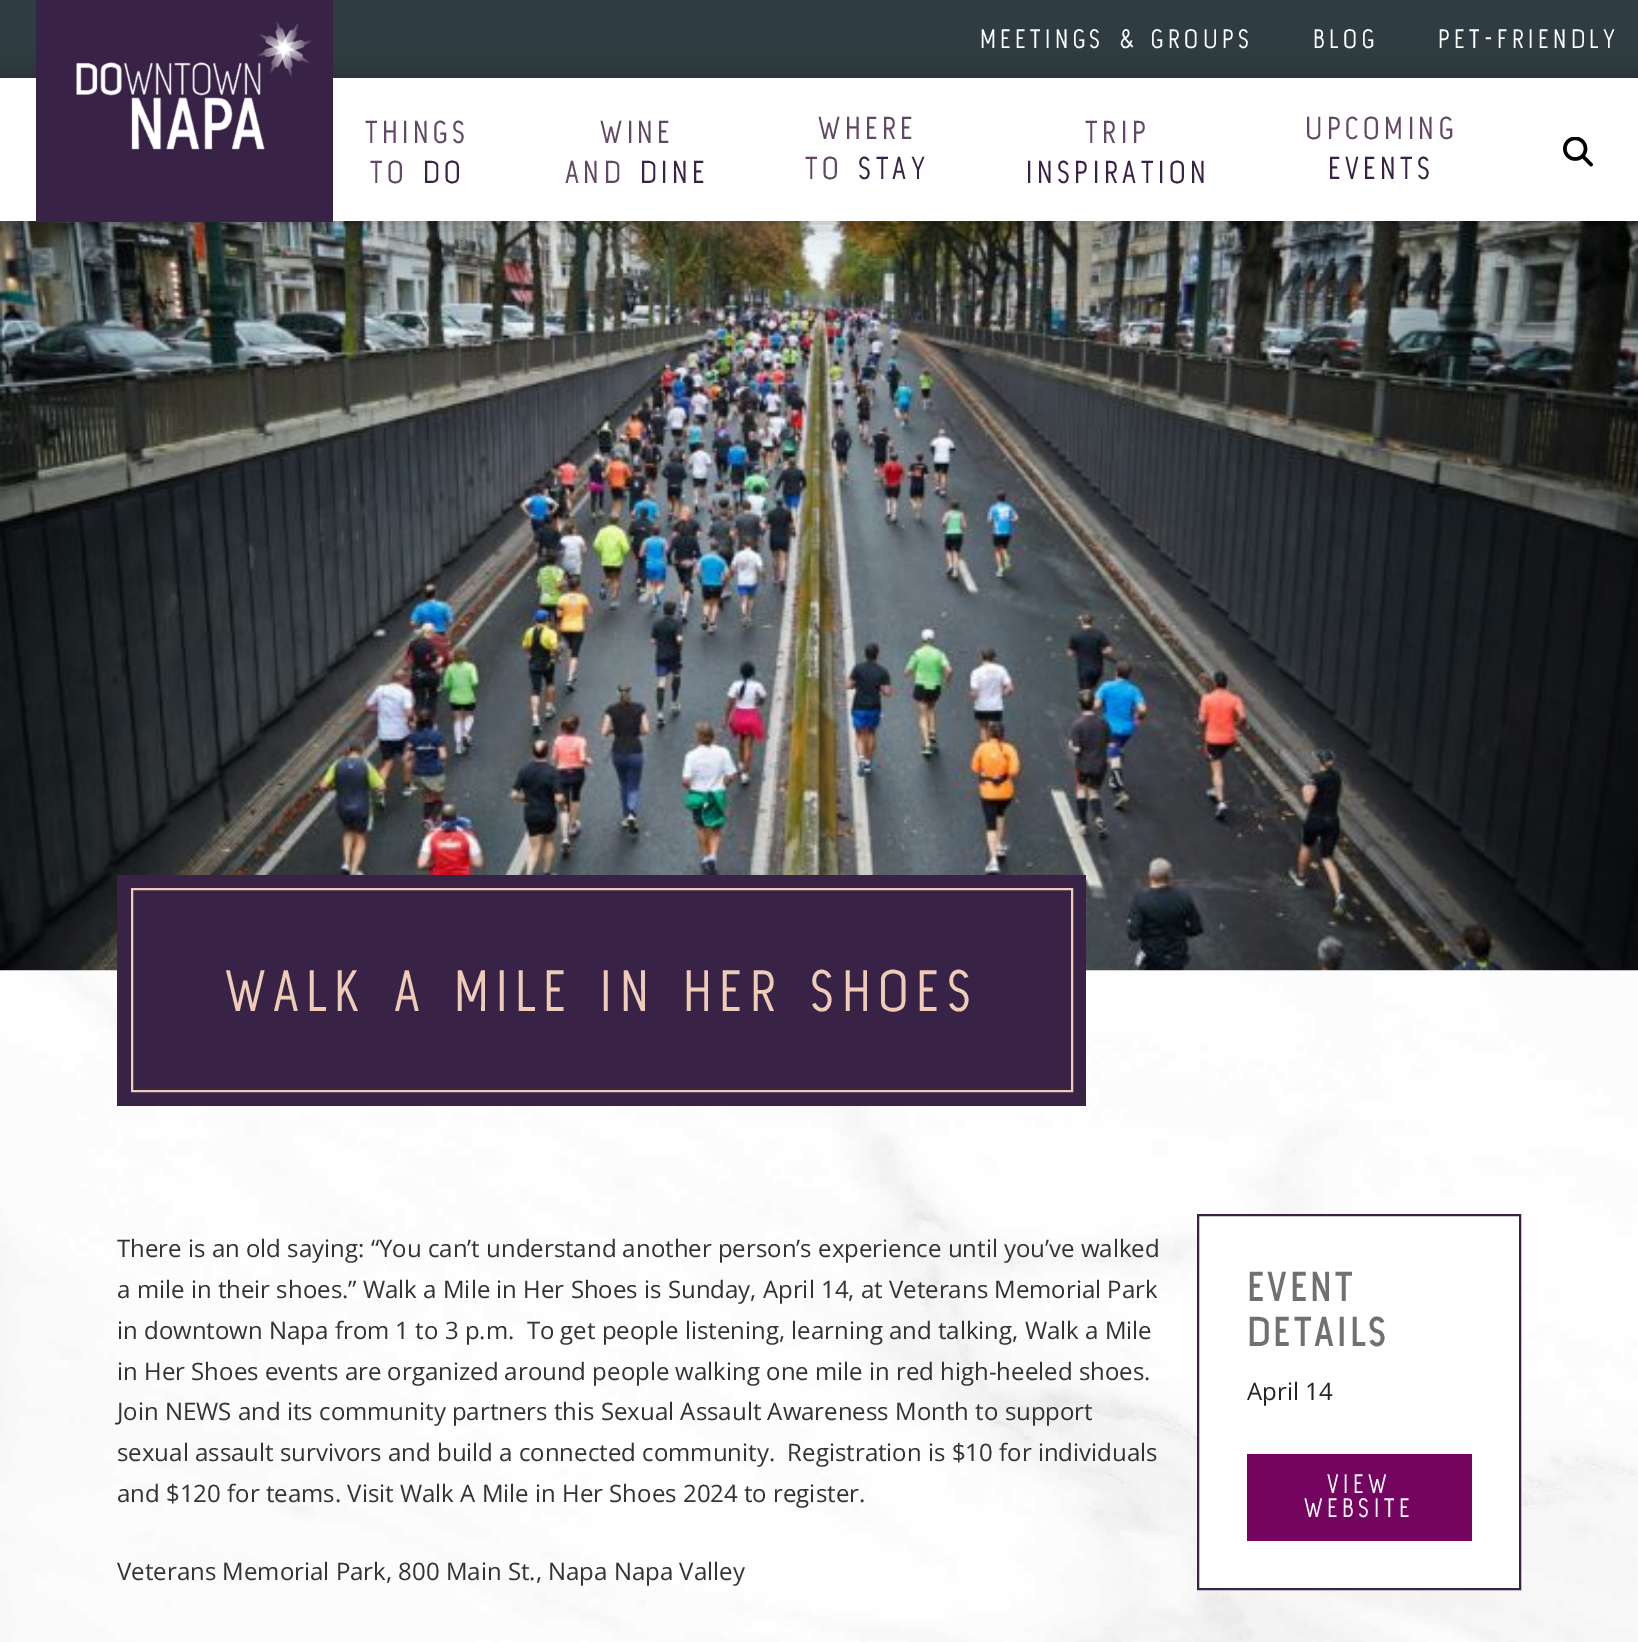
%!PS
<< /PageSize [1638 1642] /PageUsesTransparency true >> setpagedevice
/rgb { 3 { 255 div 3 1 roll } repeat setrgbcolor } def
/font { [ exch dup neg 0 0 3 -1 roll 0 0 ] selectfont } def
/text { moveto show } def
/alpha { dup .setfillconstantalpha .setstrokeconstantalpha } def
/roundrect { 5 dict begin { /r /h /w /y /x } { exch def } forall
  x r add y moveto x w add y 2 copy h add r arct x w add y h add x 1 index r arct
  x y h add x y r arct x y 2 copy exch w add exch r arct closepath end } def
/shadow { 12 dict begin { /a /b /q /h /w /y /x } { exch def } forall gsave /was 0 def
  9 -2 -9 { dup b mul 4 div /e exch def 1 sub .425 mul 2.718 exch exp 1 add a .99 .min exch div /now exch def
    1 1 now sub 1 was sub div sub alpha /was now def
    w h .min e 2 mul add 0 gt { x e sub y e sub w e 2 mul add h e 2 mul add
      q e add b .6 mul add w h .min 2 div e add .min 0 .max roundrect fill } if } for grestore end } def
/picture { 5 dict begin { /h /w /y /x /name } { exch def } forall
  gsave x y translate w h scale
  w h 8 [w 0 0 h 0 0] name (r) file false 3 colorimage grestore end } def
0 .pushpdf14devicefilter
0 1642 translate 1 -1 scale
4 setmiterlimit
255 255 255 rgb
0 0 1638 1642 rectfill
47 60 65 rgb
0 0 1638 78 rectfill
(img_03.rgb) 0 221 1638 750 picture
0 0 0 rgb
0 78 1638 143 0 15 0.28 shadow
255 255 255 rgb
0 78 1638 143 rectfill
(img_01.rgb) 36 0 297 222 picture
(img_02.rgb) 1563 137 30 30 picture
(img_04.rgb) 0 970 1638 672 picture
56 34 70 rgb
117 875 969 231 rectfill
239 204 183 rgb
2 setlinewidth
132 889 940 202 rectstroke
255 255 255 rgb
1198 1215 moveto 322 0 rlineto 0 374 rlineto -322 0 rlineto closepath gsave fill grestore
56 34 70 rgb
stroke
116 4 95 rgb
1247 1454 225 87 rectfill
/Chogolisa-Regular 24 font
255 255 255 rgb
980 48 moveto 4.5 0 (MEETINGS & GROUPS) ashow
1313 48 moveto 4.5 0 (BLOG) ashow
1438 48 moveto 4.5 0 (PET-FRIENDLY) ashow
/Chogolisa-Regular 28.5 font
98 72 101 rgb
365 143 moveto 4.5 0 (THINGS) ashow
370 183 moveto 4.5 0 (TO) ashow
56 34 70 rgb
423 183 moveto 4.5 0 (DO) ashow
98 72 101 rgb
600 143 moveto 4.5 0 (WINE) ashow
565 183 moveto 4.5 0 (AND) ashow
56 34 70 rgb
640 183 moveto 4.5 0 (DINE) ashow
98 72 101 rgb
818 139 moveto 4.5 0 (WHERE) ashow
805 179 moveto 4.5 0 (TO) ashow
56 34 70 rgb
858 179 moveto 4.5 0 (STAY) ashow
98 72 101 rgb
1085 143 moveto 4.5 0 (TRIP) ashow
56 34 70 rgb
1026 183 moveto 4.5 0 (INSPIRATION) ashow
98 72 101 rgb
1305 139 moveto 4.5 0 (UPCOMING) ashow
56 34 70 rgb
1328 179 moveto 4.5 0 (EVENTS) ashow
/Chogolisa-Regular 52.5 font
239 204 183 rgb
225 1011 moveto 7.5 0 (WALK A MILE IN HER SHOES) ashow
/OpenSans-Regular 24 font
51 51 51 rgb
(There is an old saying: “You can’t understand another person’s experience until you’ve walked) 117 1257 text
(a mile in their shoes.” Walk a Mile in Her Shoes is Sunday, April 14, at Veterans Memorial Park) 117 1298 text
(in downtown Napa from 1 to 3 p.m.  To get people listening, learning and talking, Walk a Mile) 117 1339 text
(in Her Shoes events are organized around people walking one mile in red high-heeled shoes.) 117 1380 text
(Join NEWS and its community partners this Sexual Assault Awareness Month to support) 117 1420 text
(sexual assault survivors and build a connected community.  Registration is $10 for individuals) 117 1461 text
(and $120 for teams. Visit Walk A Mile in Her Shoes 2024 to register.) 117 1502 text
(Veterans Memorial Park, 800 Main St., Napa Napa Valley) 117 1580 text
/Chogolisa-Bold 37.5 font
112 112 112 rgb
1247 1301 moveto 3 0 (EVENT) ashow
1247 1346 moveto 3 0 (DETAILS) ashow
/OpenSans-Regular 24 font
33 37 41 rgb
(April 14) 1247 1400 text
/Chogolisa-Regular 24 font
255 255 255 rgb
1327 1493 moveto 4.5 0 (VIEW) ashow
1304 1517 moveto 4.5 0 (WEBSITE) ashow
.poppdf14devicefilter showpage
